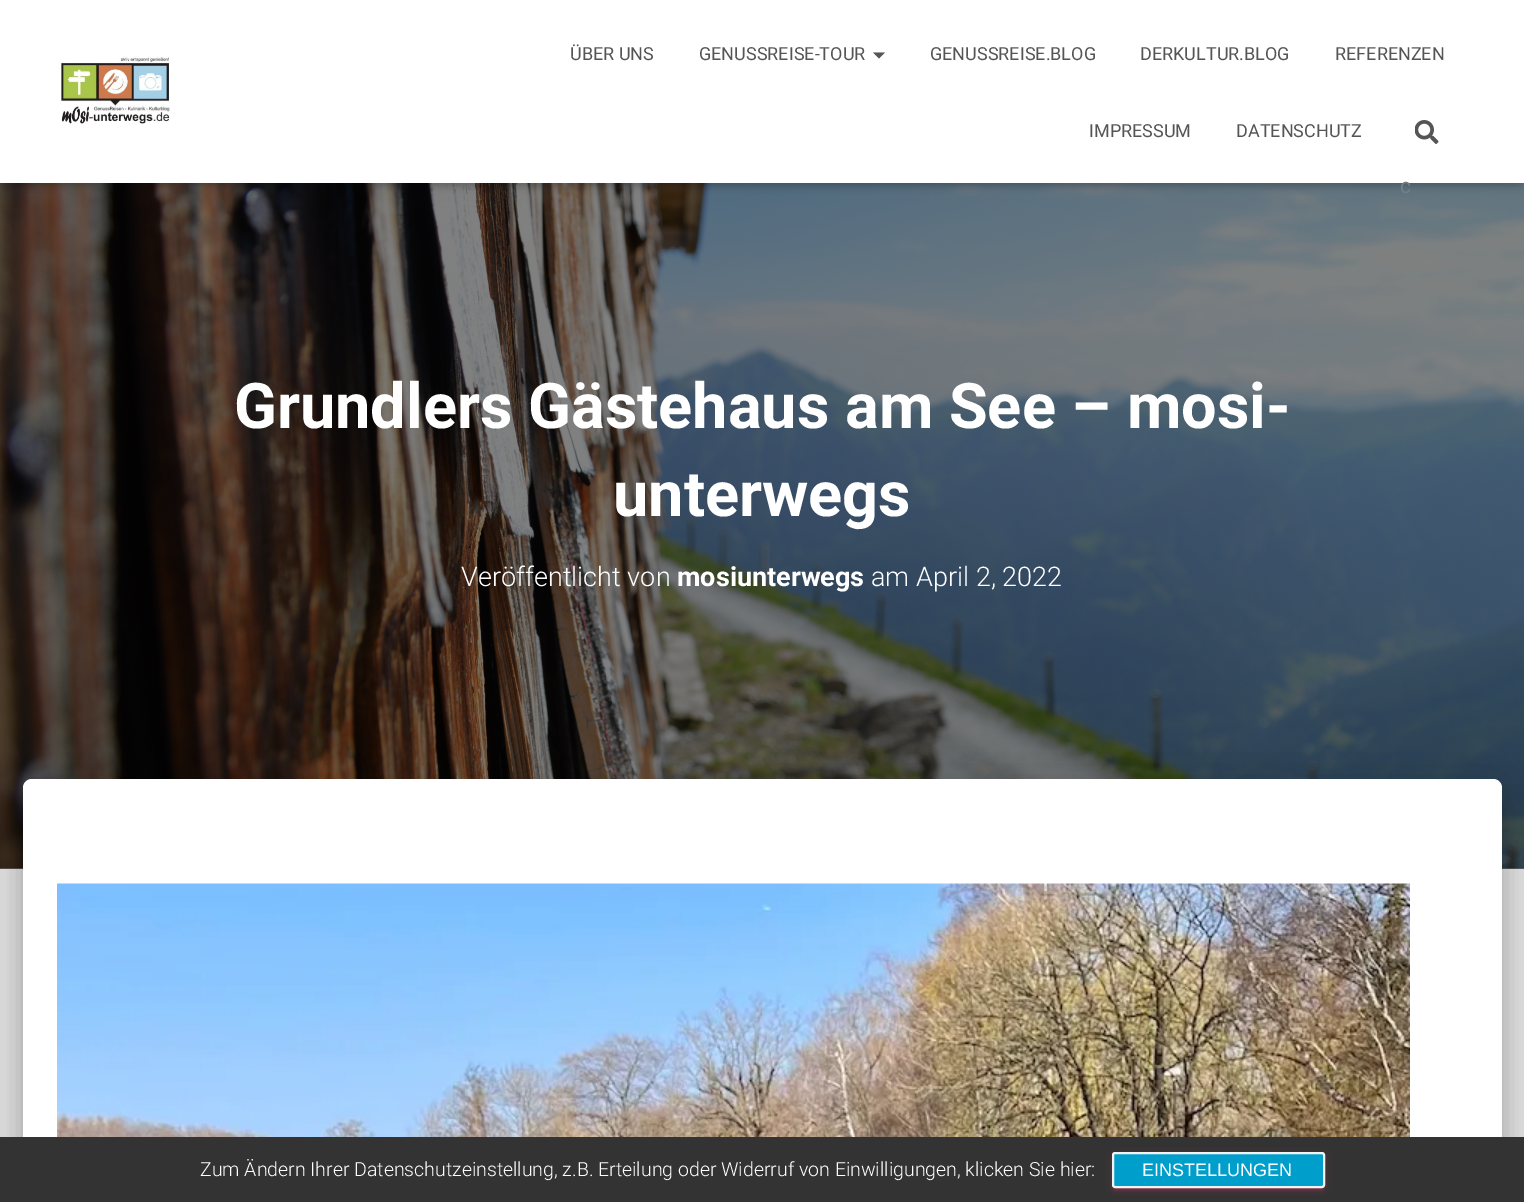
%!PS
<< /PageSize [1524 1202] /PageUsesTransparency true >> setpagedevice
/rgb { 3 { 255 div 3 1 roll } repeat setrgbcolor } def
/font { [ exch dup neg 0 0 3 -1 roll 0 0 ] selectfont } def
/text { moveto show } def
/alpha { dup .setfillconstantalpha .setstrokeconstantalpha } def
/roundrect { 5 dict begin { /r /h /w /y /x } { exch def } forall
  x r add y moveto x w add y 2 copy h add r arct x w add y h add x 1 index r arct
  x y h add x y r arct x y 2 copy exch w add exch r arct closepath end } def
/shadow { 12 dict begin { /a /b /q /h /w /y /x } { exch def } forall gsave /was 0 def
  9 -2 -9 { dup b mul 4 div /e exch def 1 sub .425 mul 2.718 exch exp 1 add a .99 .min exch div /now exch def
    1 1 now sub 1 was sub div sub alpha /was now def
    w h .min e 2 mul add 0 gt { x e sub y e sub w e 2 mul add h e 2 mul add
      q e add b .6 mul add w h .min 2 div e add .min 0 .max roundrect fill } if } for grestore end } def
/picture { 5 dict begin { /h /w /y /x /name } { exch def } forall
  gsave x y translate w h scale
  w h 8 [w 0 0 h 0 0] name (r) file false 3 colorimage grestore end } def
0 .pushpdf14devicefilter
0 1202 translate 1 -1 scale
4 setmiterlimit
229 229 229 rgb
0 0 1524 1202 rectfill
115 115 115 rgb
0 868 1524 1 rectfill
(img_03.rgb) 0 183 1524 686 picture
0 0 0 rgb
3 9 1518 177 0 4 0.1 shadow
0 2 1524 183 0 7.5 0.12 shadow
9 11 1506 165 0 7.5 0.42 shadow
255 255 255 rgb
0 0 1524 183 rectfill
(img_01.rgb) 61 56 109 68 picture
85 85 85 rgb
873 52.5 moveto 12 0 rlineto -6 6 rlineto closepath fill
(img_02.rgb) 1415 120 24 24 picture
0 0 0 rgb
30 798 1464 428 1.5 7.5 0.2 shadow
15 780 1494 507 17 22.5 0.12 shadow
20 800 1485 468 12 18 0.14 shadow
255 255 255 rgb
32 779 moveto 1461 0 rlineto 5 0 9 4 9 9 rcurveto 0 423 rlineto -1479 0 rlineto 0 -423 rlineto 0 -5 4 -9 9 -9 rcurveto closepath fill
(img_04.rgb) 57 883 1353 254 picture
51 51 51 rgb
0 1137 1524 65 rectfill
233 30 99 rgb
1112 1154 213 36 3 4 0.12 shadow
1115 1160 207 30 0 1 0.2 shadow
1112 1155 213 36 3 1.5 0.14 shadow
0 158 203 rgb
1113 1153 211 34 2 roundrect gsave fill grestore
243 243 243 rgb
2 setlinewidth
stroke
/Roboto-Regular 18 font
85 85 85 rgb
(ÜBER UNS) 570 60 text
(GENUSSREISE-TOUR) 699 60 text
(GENUSSREISE.BLOG) 930 60 text
(DERKULTUR.BLOG) 1140 60 text
(REFERENZEN) 1335 60 text
(IMPRESSUM) 1089 137 text
(DATENSCHUTZ) 1236 137 text
/Roboto-Regular 21 font
113 127 136 rgb
(c) 1400 193 text
/Roboto-Bold 63 font
255 255 255 rgb
(Grundlers Gästehaus am See – mosi-) 234 428 text
(unterwegs) 613 516 text
/Roboto-Light 27 font
(Veröffentlicht von) 461 586 text
/Roboto-Bold 27 font
(mosiunterwegs) 677 586 text
/Roboto-Light 27 font
(am April 2, 2022) 871 586 text
/Roboto-Light 19.5 font
(Zum Ändern Ihrer Datenschutzeinstellung, z.B. Erteilung oder Widerruf von Einwilligungen, klicken Sie hier:) 200 1176 text
/LiberationSans-Regular 18 font
(EINSTELLUNGEN) 1142 1176 text
.poppdf14devicefilter showpage
